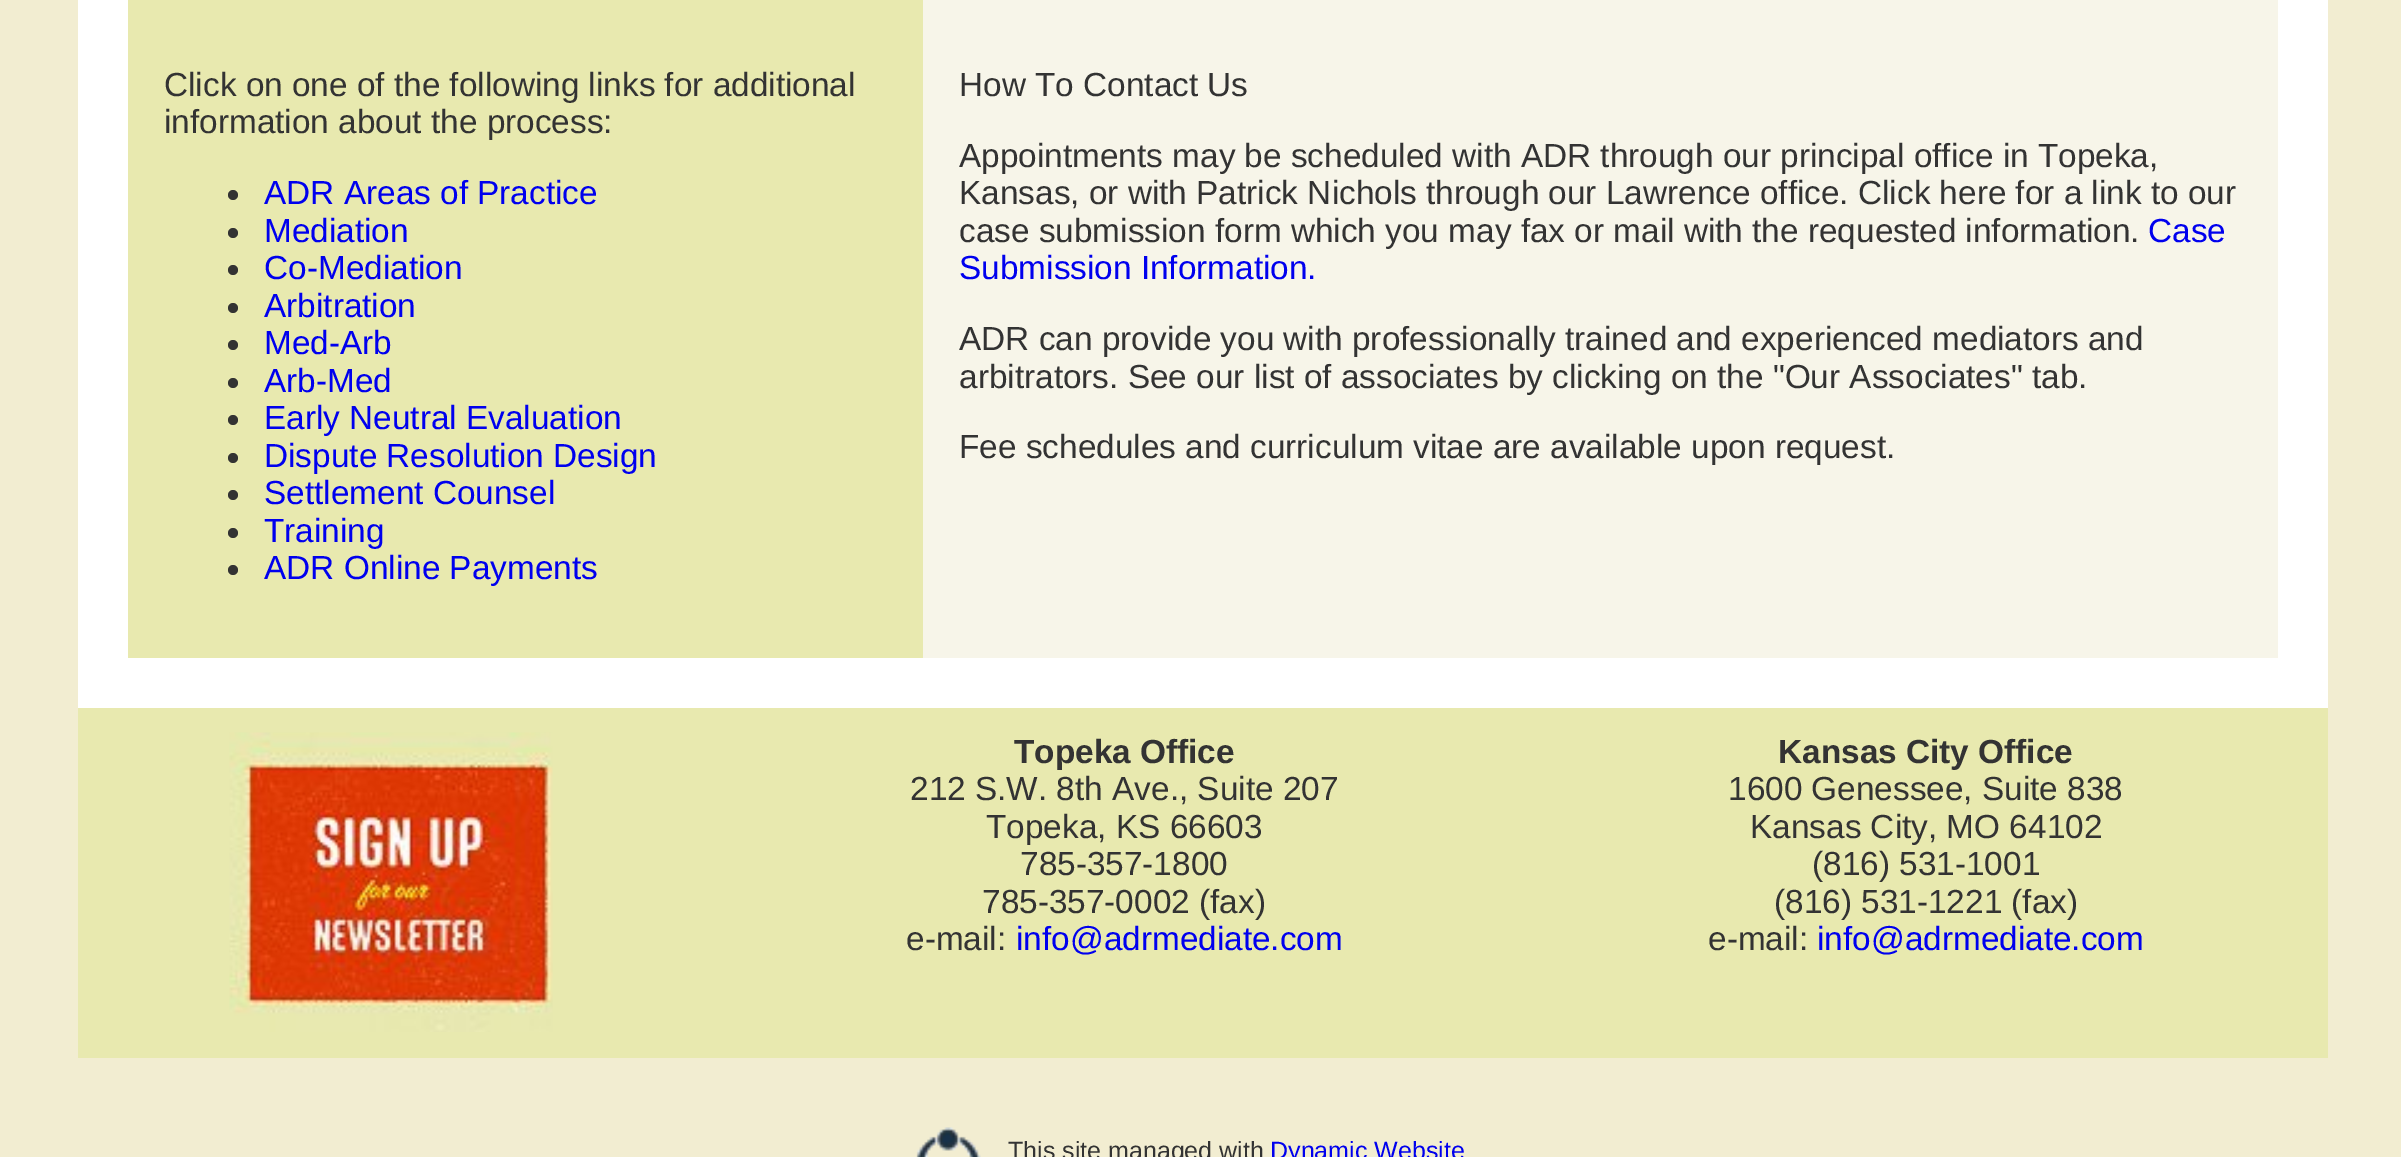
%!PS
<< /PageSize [2401 1157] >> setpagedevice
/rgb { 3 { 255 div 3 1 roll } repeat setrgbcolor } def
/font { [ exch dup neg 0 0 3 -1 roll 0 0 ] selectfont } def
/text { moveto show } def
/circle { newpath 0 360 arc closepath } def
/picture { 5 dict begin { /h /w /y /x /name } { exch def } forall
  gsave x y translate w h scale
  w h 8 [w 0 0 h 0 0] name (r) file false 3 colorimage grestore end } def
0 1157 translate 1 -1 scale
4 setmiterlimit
242 237 209 rgb
0 0 2401 1157 rectfill
255 255 255 rgb
78 0 2250 708 rectfill
232 233 175 rgb
128 0 795 658 rectfill
51 51 51 rgb
233 195 5 circle fill
233 233 5 circle fill
233 270 5 circle fill
233 308 5 circle fill
233 345 5 circle fill
233 383 5 circle fill
233 420 5 circle fill
233 458 5 circle fill
233 495 5 circle fill
233 533 5 circle fill
233 570 5 circle fill
247 245 233 rgb
923 0 1355 658 rectfill
232 233 175 rgb
78 708 2250 350 rectfill
(img_01.rgb) 229 732 324 300 picture
(img_02.rgb) 916 1127 65 30 picture
/LiberationSans-Regular 33.35 font
51 51 51 rgb
(Click on one of the following links for additional) 164 96 text
(information about the process:) 164 133 text
0 0 238 rgb
(ADR Areas of Practice) 264 204 text
(Mediation) 264 242 text
(Co-Mediation) 264 279 text
(Arbitration) 264 317 text
(Med-Arb) 264 354 text
(Arb-Med) 264 392 text
(Early Neutral Evaluation) 264 429 text
(Dispute Resolution Design) 264 467 text
(Settlement Counsel) 264 504 text
(Training) 264 542 text
(ADR Online Payments) 264 579 text
51 51 51 rgb
(How To Contact Us) 959 96 text
(Appointments may be scheduled with ADR through our principal office in Topeka,) 959 167 text
(Kansas, or with Patrick Nichols through our Lawrence office. Click here for a link to our) 959 204 text
(case submission form which you may fax or mail with the requested information.) 959 242 text
0 0 238 rgb
(Case) 2148 242 text
(Submission Information.) 959 279 text
51 51 51 rgb
(ADR can provide you with professionally trained and experienced mediators and) 959 350 text
(arbitrators. See our list of associates by clicking on the "Our Associates" tab.) 959 388 text
(Fee schedules and curriculum vitae are available upon request.) 959 458 text
/LiberationSans-Bold 33.35 font
(Topeka Office) 1014 763 text
/LiberationSans-Regular 33.35 font
(212 S.W. 8th Ave., Suite 207) 910 800 text
(Topeka, KS 66603) 986 838 text
(785-357-1800) 1020 875 text
(785-357-0002 \(fax\)) 982 913 text
(e-mail:) 906 950 text
0 0 238 rgb
(info@adrmediate.com) 1016 950 text
/LiberationSans-Bold 33.35 font
51 51 51 rgb
(Kansas City Office) 1778 763 text
/LiberationSans-Regular 33.35 font
(1600 Genessee, Suite 838) 1728 800 text
(Kansas City, MO 64102) 1750 838 text
(\(816\) 531-1001) 1812 875 text
(\(816\) 531-1221 \(fax\)) 1774 913 text
(e-mail:) 1708 950 text
0 0 238 rgb
(info@adrmediate.com) 1817 950 text
/LiberationSans-Regular 25 font
51 51 51 rgb
(This site managed with) 1008 1159 text
0 0 238 rgb
(Dynamic Website) 1270 1159 text
showpage
